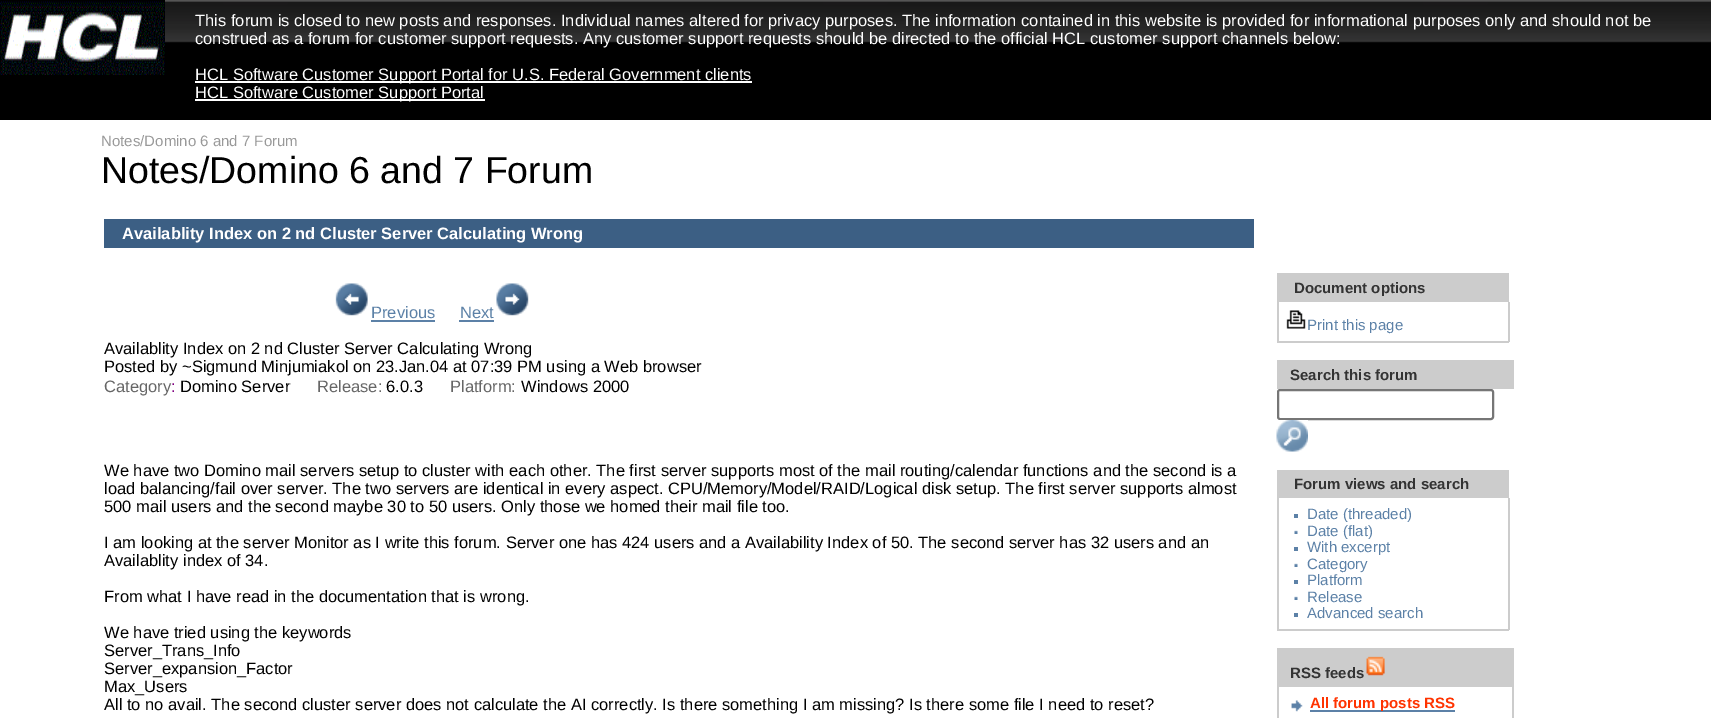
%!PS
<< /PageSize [1711 718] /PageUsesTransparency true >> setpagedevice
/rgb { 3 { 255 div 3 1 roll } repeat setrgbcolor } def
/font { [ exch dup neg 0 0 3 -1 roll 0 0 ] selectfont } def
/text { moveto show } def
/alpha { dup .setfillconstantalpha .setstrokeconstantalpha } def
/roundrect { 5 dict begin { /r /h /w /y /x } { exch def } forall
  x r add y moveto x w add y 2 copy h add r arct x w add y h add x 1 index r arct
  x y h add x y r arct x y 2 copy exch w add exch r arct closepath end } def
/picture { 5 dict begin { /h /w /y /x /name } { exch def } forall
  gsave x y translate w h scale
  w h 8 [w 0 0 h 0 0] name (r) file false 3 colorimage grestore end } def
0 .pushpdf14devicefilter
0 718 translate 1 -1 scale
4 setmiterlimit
255 255 255 rgb
0 0 1711 718 rectfill
0 0 0 rgb
0 0 1711 120 rectfill
(img_01.rgb) 165 0 1546 43 picture
(img_02.rgb) 0 0 165 75 picture
255 255 255 rgb
195 81 557 2 rectfill
195 99 290 2 rectfill
60 95 132 rgb
104 219 1150 29 rectfill
(img_03.rgb) 335 283 33 33 picture
92 129 167 rgb
371 320 64 2 rectfill
459 320 35 2 rectfill
(img_04.rgb) 496 283 33 33 picture
204 204 204 rgb
1277 273 232 29 rectfill
1508 302 2 40 rectfill
1277 341 232 2 rectfill
1277 302 2 40 rectfill
(img_05.rgb) 1286 310 20 19 picture
1277 360 237 29 rectfill
118 118 118 rgb
2 setlinewidth
1278 390 215 29 2 roundrect stroke
(img_06.rgb) 1276 420 32 32 picture
204 204 204 rgb
1277 470 232 28 rectfill
1508 498 2 132 rectfill
1277 629 232 2 rectfill
1277 498 2 132 rectfill
92 129 167 rgb
1294 514 4 4 rectfill
(img_07.rgb) 1294 530 4 4 picture
1294 547 4 4 rectfill
(img_07.rgb) 1294 563 4 4 picture
1294 580 4 4 rectfill
(img_07.rgb) 1294 596 4 4 picture
1294 613 4 4 rectfill
204 204 204 rgb
1277 648 237 39 rectfill
(img_08.rgb) 1366 656 19 20 picture
1512 687 2 31 rectfill
1277 687 2 31 rectfill
(img_09.rgb) 1291 700 12 12 picture
92 129 167 rgb
1310 710 145 2 rectfill
/LiberationSans-Regular 16.5 font
255 255 255 rgb
(This forum is closed to new posts and responses. Individual names altered for privacy purposes. The information contained in this website is provided for informational purposes only and should not be) 195 26 text
(construed as a forum for customer support requests. Any customer support requests should be directed to the official HCL customer support channels below:) 195 44 text
(HCL Software Customer Support Portal for U.S. Federal Government clients) 195 80 text
(HCL Software Customer Support Portal) 195 98 text
/LiberationSans-Regular 15 font
153 153 153 rgb
(Notes/Domino 6 and 7 Forum) 101 146 text
/LiberationSans-Regular 37.5 font
0 0 0 rgb
(Notes/Domino 6 and 7 Forum) 101 183 text
/LiberationSans-Bold 16.5 font
255 255 255 rgb
(Availablity Index on 2 nd Cluster Server Calculating Wrong) 122 239 text
/LiberationSans-Regular 16.5 font
92 129 167 rgb
(Previous) 371 318 text
(Next) 460 318 text
0 0 0 rgb
(Availablity Index on 2 nd Cluster Server Calculating Wrong) 104 354 text
(Posted by ~Sigmund Minjumiakol on 23.Jan.04 at 07:39 PM using a Web browser) 104 372 text
102 102 102 rgb
(Category) 104 392 text
128 0 128 rgb
(:) 171 392 text
0 0 0 rgb
(Domino Server) 180 392 text
0.5 alpha
255 255 255 rgb
289 375 1 10 rectfill
1 alpha
102 102 102 rgb
(Release:) 317 392 text
0 0 0 rgb
(6.0.3) 386 392 text
102 102 102 rgb
(Platform:) 450 392 text
0 0 0 rgb
(Windows 2000) 521 392 text
(We have two Domino mail servers setup to cluster with each other. The first server supports most of the mail routing/calendar functions and the second is a) 104 476 text
(load balancing/fail over server. The two servers are identical in every aspect. CPU/Memory/Model/RAID/Logical disk setup. The first server supports almost) 104 494 text
(500 mail users and the second maybe 30 to 50 users. Only those we homed their mail file too.) 104 512 text
(I am looking at the server Monitor as I write this forum. Server one has 424 users and a Availability Index of 50. The second server has 32 users and an) 104 548 text
(Availablity index of 34.) 104 566 text
(From what I have read in the documentation that is wrong.) 104 602 text
(We have tried using the keywords) 104 638 text
(Server_Trans_Info) 104 656 text
(Server_expansion_Factor) 104 674 text
(Max_Users) 104 692 text
(All to no avail. The second cluster server does not calculate the AI correctly. Is there something I am missing? Is there some file I need to reset?) 104 710 text
/LiberationSans-Bold 15 font
51 51 51 rgb
(Document options) 1294 293 text
/LiberationSans-Regular 15 font
92 129 167 rgb
(Print this page) 1307 330 text
/LiberationSans-Bold 15 font
51 51 51 rgb
(Search this forum) 1290 380 text
(Forum views and search) 1294 489 text
/LiberationSans-Regular 15 font
92 129 167 rgb
(Date \(threaded\)) 1307 519 text
(Date \(flat\)) 1307 536 text
(With excerpt) 1307 552 text
(Category) 1307 569 text
(Platform) 1307 585 text
(Release) 1307 602 text
(Advanced search) 1307 618 text
/LiberationSans-Bold 15 font
51 51 51 rgb
(RSS feeds) 1290 678 text
255 51 0 rgb
(All forum posts RSS) 1310 708 text
.poppdf14devicefilter showpage
